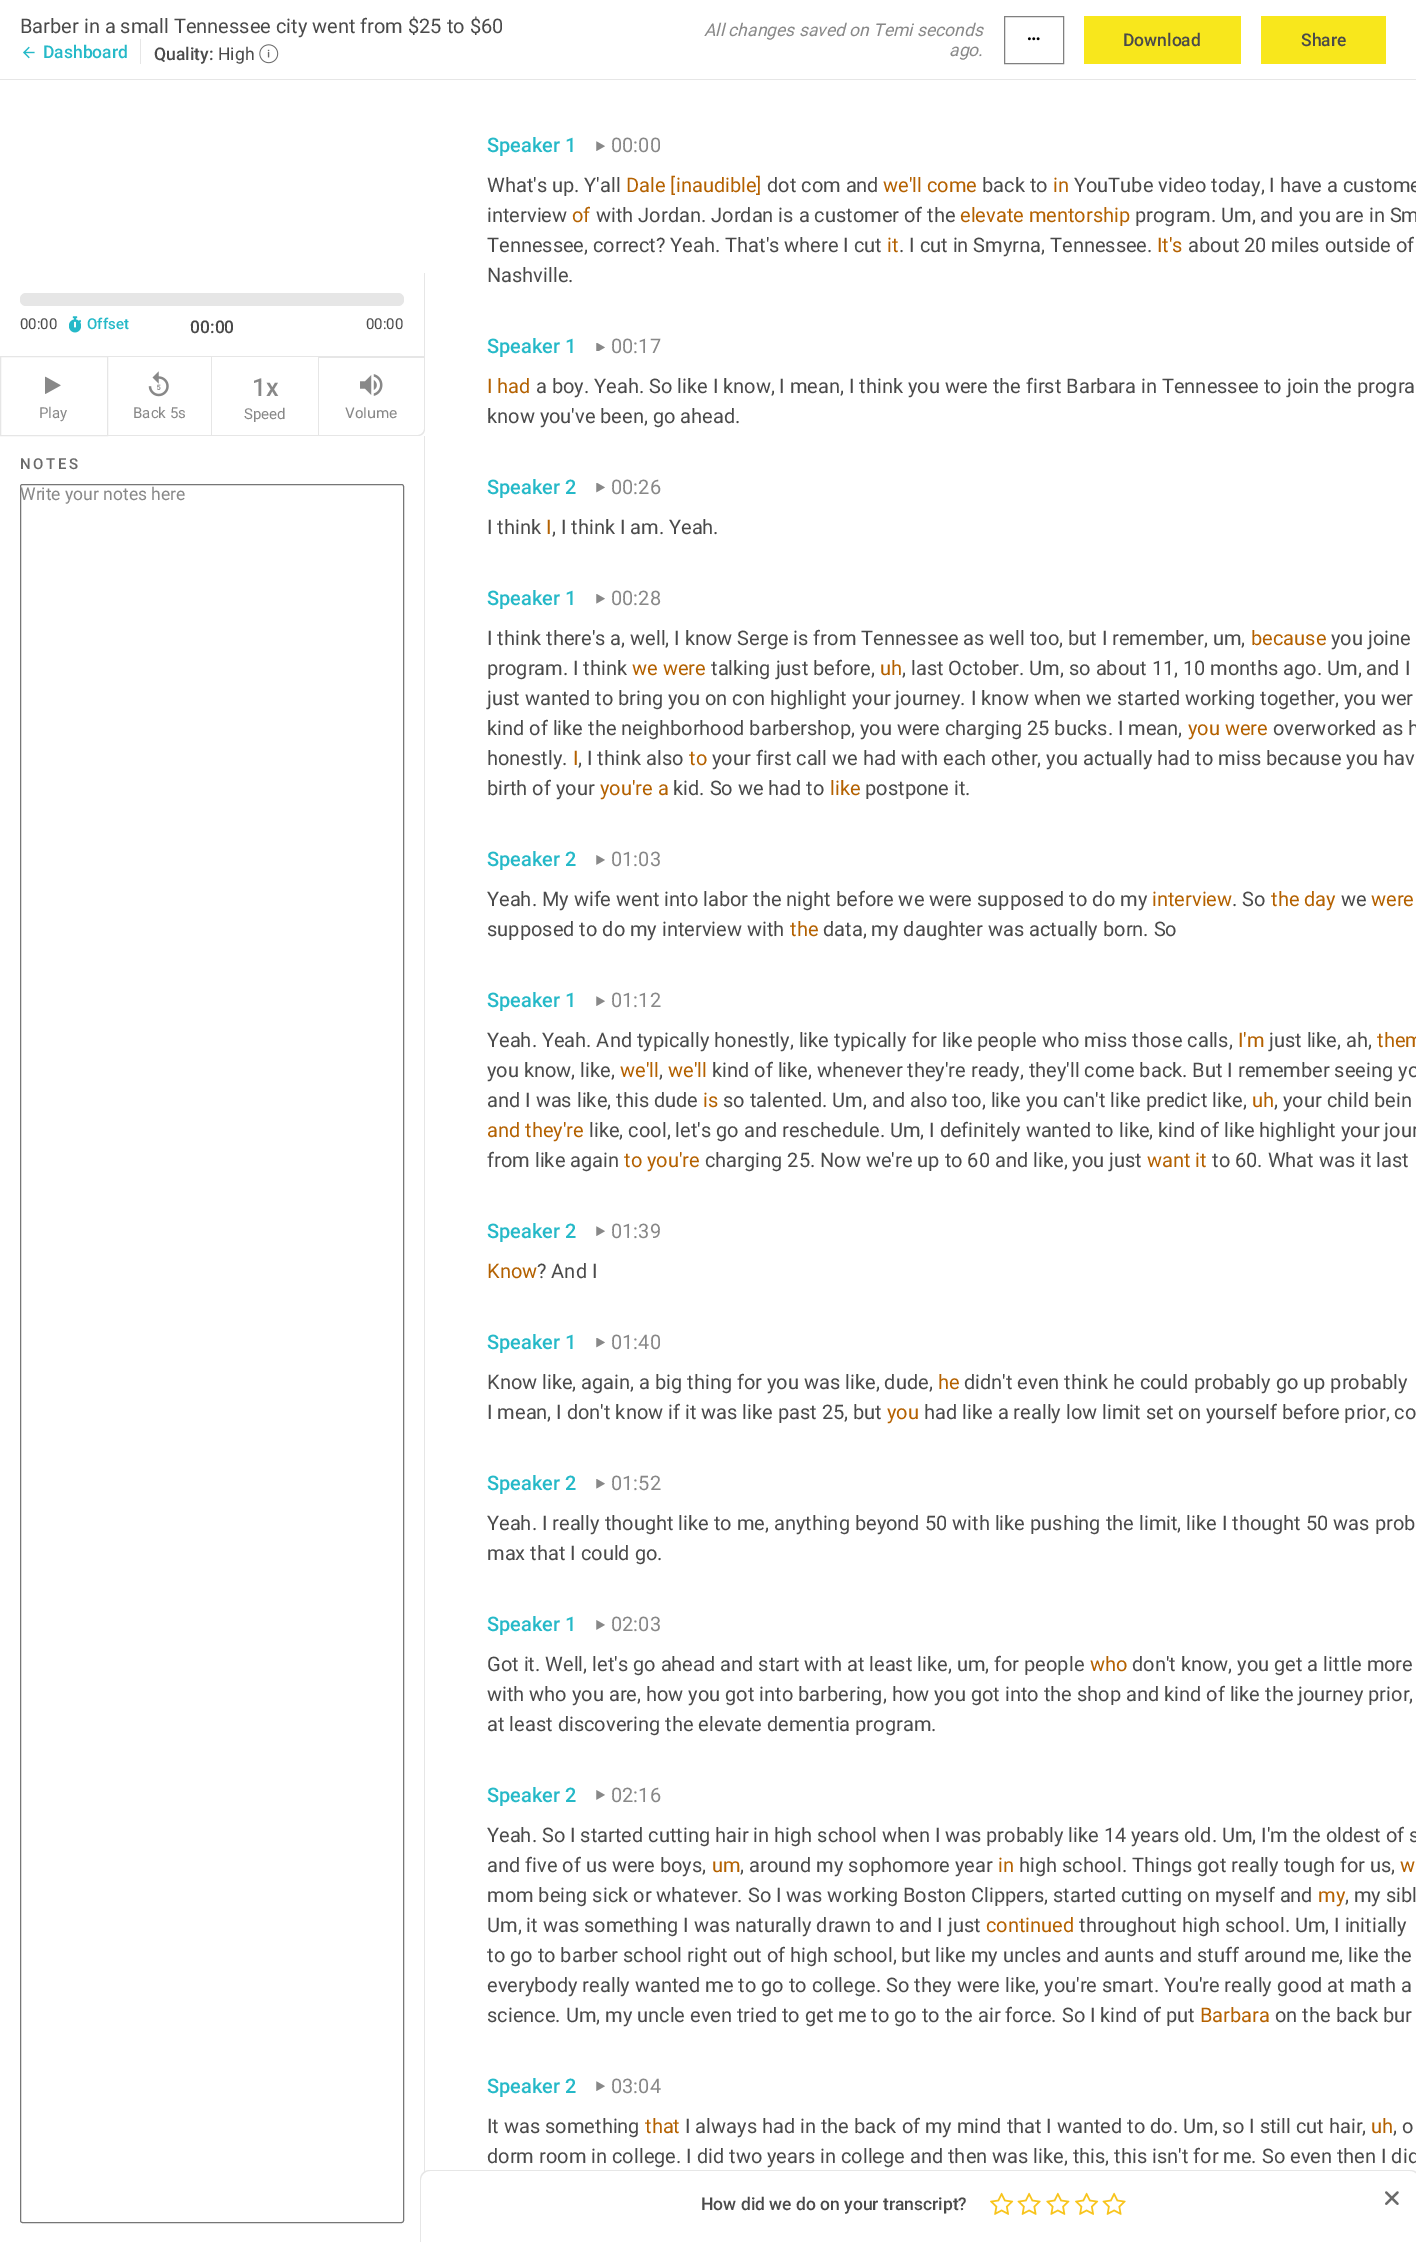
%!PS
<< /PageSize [1416 2242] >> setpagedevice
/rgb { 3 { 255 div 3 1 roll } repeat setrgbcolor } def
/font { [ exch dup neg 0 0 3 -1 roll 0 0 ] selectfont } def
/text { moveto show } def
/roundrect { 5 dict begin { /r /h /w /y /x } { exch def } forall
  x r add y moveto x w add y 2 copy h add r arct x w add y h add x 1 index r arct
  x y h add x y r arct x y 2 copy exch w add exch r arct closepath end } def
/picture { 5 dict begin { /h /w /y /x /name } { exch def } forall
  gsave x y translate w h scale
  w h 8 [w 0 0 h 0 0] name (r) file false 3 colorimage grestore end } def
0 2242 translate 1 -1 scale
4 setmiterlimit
255 255 255 rgb
0 0 1416 2242 rectfill
230 230 230 rgb
0 79 1416 1 rectfill
(img_01.rgb) 23 46 12 13 picture
140 39 1 25 rectfill
(img_02.rgb) 259 44 20 20 picture
128 128 128 rgb
1004.5 16.5 59 47 rectstroke
(img_03.rgb) 1027 37 13 4 picture
248 231 28 rgb
1084 16 157 48 rectfill
1261 16 125 48 rectfill
230 230 230 rgb
424 273 1 83 rectfill
20 293 384 13 6 roundrect fill
(img_04.rgb) 69 316 12 17 picture
0.5 356.5 107 79 rectstroke
(img_05.rgb) 45 376 16 18 picture
108 356 211 1 rectfill
211 356 1 80 rectfill
108 435 105 1 rectfill
(img_06.rgb) 148 371 21 26 picture
318 356 1 80 rectfill
213 435 106 1 rectfill
319 356 moveto 106 0 rlineto 0 73 rlineto 0 4 -3 7 -7 7 rcurveto -99 0 rlineto closepath 319 358 moveto 105 0 rlineto 0 71 rlineto 0 3 -3 6 -6 6 rcurveto -99 0 rlineto closepath eofill
(img_07.rgb) 360 374 23 22 picture
424 436 1 1738 rectfill
118 118 118 rgb
20.5 484.5 383 1738 2 roundrect stroke
(img_08.rgb) 596 141 9 10 picture
(img_09.rgb) 596 343 9 8 picture
(img_10.rgb) 596 483 9 10 picture
(img_11.rgb) 596 594 9 10 picture
(img_12.rgb) 596 855 9 10 picture
(img_08.rgb) 596 996 9 10 picture
(img_08.rgb) 596 1226 9 10 picture
(img_10.rgb) 596 1338 9 10 picture
(img_11.rgb) 596 1479 9 10 picture
(img_12.rgb) 596 1620 9 10 picture
(img_12.rgb) 596 1790 9 10 picture
(img_08.rgb) 596 2081 9 10 picture
255 255 255 rgb
430 2171 moveto 980 0 rlineto 5 0 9 4 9 9 rcurveto 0 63 rlineto -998 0 rlineto 0 -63 rlineto 0 -5 4 -9 9 -9 rcurveto closepath fill
230 230 230 rgb
430 2170 moveto 980 0 rlineto 6 0 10 4 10 10 rcurveto 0 62 rlineto -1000 0 rlineto 0 -62 rlineto 0 -6 4 -10 10 -10 rcurveto closepath 430 2171 moveto 980 0 rlineto 5 0 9 4 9 9 rcurveto 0 62 rlineto -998 0 rlineto 0 -62 rlineto 0 -5 4 -9 9 -9 rcurveto closepath eofill
(img_13.rgb) 990 2192 24 23 picture
(img_14.rgb) 1017 2192 24 23 picture
(img_15.rgb) 1046 2192 24 23 picture
(img_13.rgb) 1075 2192 24 23 picture
(img_14.rgb) 1102 2192 24 23 picture
(img_16.rgb) 1385 2191 14 14 picture
/Roboto-Regular 20 font
74 74 74 rgb
(Barber in a small Tennessee city went from $25 to $60) 20 33 text
/Roboto-Medium 17.5 font
37 185 200 rgb
(Dashboard) 43 58 text
74 74 74 rgb
(Quality:) 154 60 text
/Roboto-Regular 17.5 font
(High) 218 60 text
/Roboto-Italic 17.5 font
136 136 136 rgb
(All changes saved on Temi seconds) 704 36 text
(ago.) 949 56 text
/Roboto-Medium 17.5 font
74 74 74 rgb
(Download) 1123 46 text
(Share) 1301 46 text
/Roboto-Regular 15 font
(00:00) 20 329 text
/Roboto-Medium 15 font
37 185 200 rgb
(Offset) 87 329 text
/Roboto-Medium 17.5 font
74 74 74 rgb
(00:00) 190 333 text
/Roboto-Regular 15 font
(00:00) 366 329 text
136 136 136 rgb
(Play) 39 418 text
(Back 5s) 133 418 text
/Roboto-Medium 25 font
(1x) 252 396 text
/Roboto-Regular 15 font
(Speed) 244 419 text
/Rubik-Regular 15 font
(Volume) 345 418 text
/Roboto-Medium 15 font
106 106 106 rgb
20 469 moveto 2.5 0 (NOTES) ashow
/Roboto-Regular 17.5 font
136 136 136 rgb
(Write your notes here) 20 500 text
/Roboto-Medium 20 font
37 185 200 rgb
(Speaker 1) 487 152 text
/Roboto-Regular 20 font
136 136 136 rgb
(00:00) 611 152 text
74 74 74 rgb
(What's up. Y'all) 487 192 text
180 97 0 rgb
(Dale [inaudible]) 626 192 text
74 74 74 rgb
(dot com and) 767 192 text
180 97 0 rgb
(we'll come) 883 192 text
74 74 74 rgb
(back to) 982 192 text
180 97 0 rgb
(in) 1053 192 text
74 74 74 rgb
(YouTube video today, I have a custome) 1074 192 text
(interview) 487 222 text
180 97 0 rgb
(of) 572 222 text
74 74 74 rgb
(with Jordan. Jordan is a customer of the) 596 222 text
180 97 0 rgb
(elevate mentorship) 960 222 text
74 74 74 rgb
(program. Um, and you are in Sm) 1135 222 text
(Tennessee, correct? Yeah. That's where I cut) 487 252 text
180 97 0 rgb
(it) 887 252 text
74 74 74 rgb
(. I cut in Smyrna, Tennessee.) 899 252 text
180 97 0 rgb
(It's) 1157 252 text
74 74 74 rgb
(about 20 miles outside of) 1188 252 text
(Nashville.) 487 282 text
/Roboto-Medium 20 font
37 185 200 rgb
(Speaker 1) 487 353 text
/Roboto-Regular 20 font
136 136 136 rgb
(00:17) 611 353 text
180 97 0 rgb
(I had) 487 393 text
74 74 74 rgb
(a boy. Yeah. So like I know, I mean, I think you were the first Barbara in Tennessee to join the progra) 536 393 text
(know you've been, go ahead.) 487 423 text
/Roboto-Medium 20 font
37 185 200 rgb
(Speaker 2) 487 494 text
/Roboto-Regular 20 font
136 136 136 rgb
(00:26) 611 494 text
74 74 74 rgb
(I think) 487 534 text
180 97 0 rgb
(I) 546 534 text
74 74 74 rgb
(, I think I am. Yeah.) 552 534 text
/Roboto-Medium 20 font
37 185 200 rgb
(Speaker 1) 487 605 text
/Roboto-Regular 20 font
136 136 136 rgb
(00:28) 611 605 text
74 74 74 rgb
(I think there's a, well, I know Serge is from Tennessee as well too, but I remember, um,) 487 645 text
180 97 0 rgb
(because) 1251 645 text
74 74 74 rgb
(you joine) 1331 645 text
(program. I think) 487 675 text
180 97 0 rgb
(we were) 632 675 text
74 74 74 rgb
(talking just before,) 711 675 text
180 97 0 rgb
(uh) 880 675 text
74 74 74 rgb
(, last October. Um, so about 11, 10 months ago. Um, and I) 902 675 text
(just wanted to bring you on con highlight your journey. I know when we started working together, you wer) 487 705 text
(kind of like the neighborhood barbershop, you were charging 25 bucks. I mean,) 487 735 text
180 97 0 rgb
(you were) 1188 735 text
74 74 74 rgb
(overworked as h) 1273 735 text
(honestly.) 487 765 text
180 97 0 rgb
(I) 573 765 text
74 74 74 rgb
(, I think also) 578 765 text
180 97 0 rgb
(to) 689 765 text
74 74 74 rgb
(your first call we had with each other, you actually had to miss because you hav) 712 765 text
(birth of your) 487 795 text
180 97 0 rgb
(you're a) 600 795 text
74 74 74 rgb
(kid. So we had to) 673 795 text
180 97 0 rgb
(like) 830 795 text
74 74 74 rgb
(postpone it.) 865 795 text
/Roboto-Medium 20 font
37 185 200 rgb
(Speaker 2) 487 866 text
/Roboto-Regular 20 font
136 136 136 rgb
(01:03) 611 866 text
74 74 74 rgb
(Yeah. My wife went into labor the night before we were supposed to do my) 487 906 text
180 97 0 rgb
(interview) 1152 906 text
74 74 74 rgb
(. So) 1232 906 text
180 97 0 rgb
(the day) 1271 906 text
74 74 74 rgb
(we) 1341 906 text
180 97 0 rgb
(were) 1371 906 text
74 74 74 rgb
(supposed to do my interview with) 487 936 text
180 97 0 rgb
(the) 790 936 text
74 74 74 rgb
(data, my daughter was actually born. So) 823 936 text
/Roboto-Medium 20 font
37 185 200 rgb
(Speaker 1) 487 1007 text
/Roboto-Regular 20 font
136 136 136 rgb
(01:12) 611 1007 text
74 74 74 rgb
(Yeah. Yeah. And typically honestly, like typically for like people who miss those calls,) 487 1047 text
180 97 0 rgb
(I'm) 1238 1047 text
74 74 74 rgb
(just like, ah,) 1269 1047 text
180 97 0 rgb
(them) 1377 1047 text
74 74 74 rgb
(you know, like,) 487 1077 text
180 97 0 rgb
(we'll) 620 1077 text
74 74 74 rgb
(,) 659 1077 text
180 97 0 rgb
(we'll) 668 1077 text
74 74 74 rgb
(kind of like, whenever they're ready, they'll come back. But I remember seeing yo) 712 1077 text
(and I was like, this dude) 487 1107 text
180 97 0 rgb
(is) 703 1107 text
74 74 74 rgb
(so talented. Um, and also too, like you can't like predict like,) 723 1107 text
180 97 0 rgb
(uh) 1252 1107 text
74 74 74 rgb
(, your child bein) 1274 1107 text
180 97 0 rgb
(and they're) 487 1137 text
74 74 74 rgb
(like, cool, let's go and reschedule. Um, I definitely wanted to like, kind of like highlight your jour) 589 1137 text
(from like again) 487 1167 text
180 97 0 rgb
(to you're) 624 1167 text
74 74 74 rgb
(charging 25. Now we're up to 60 and like, you just) 705 1167 text
180 97 0 rgb
(want it) 1147 1167 text
74 74 74 rgb
(to 60. What was it last) 1212 1167 text
/Roboto-Medium 20 font
37 185 200 rgb
(Speaker 2) 487 1238 text
/Roboto-Regular 20 font
136 136 136 rgb
(01:39) 611 1238 text
180 97 0 rgb
(Know) 487 1278 text
74 74 74 rgb
(? And I) 537 1278 text
/Roboto-Medium 20 font
37 185 200 rgb
(Speaker 1) 487 1349 text
/Roboto-Regular 20 font
136 136 136 rgb
(01:40) 611 1349 text
74 74 74 rgb
(Know like, again, a big thing for you was like, dude,) 487 1389 text
180 97 0 rgb
(he) 938 1389 text
74 74 74 rgb
(didn't even think he could probably go up probably) 964 1389 text
(I mean, I don't know if it was like past 25, but) 487 1419 text
180 97 0 rgb
(you) 887 1419 text
74 74 74 rgb
(had like a really low limit set on yourself before prior, co) 924 1419 text
/Roboto-Medium 20 font
37 185 200 rgb
(Speaker 2) 487 1490 text
/Roboto-Regular 20 font
136 136 136 rgb
(01:52) 611 1490 text
74 74 74 rgb
(Yeah. I really thought like to me, anything beyond 50 with like pushing the limit, like I thought 50 was prob) 487 1530 text
(max that I could go.) 487 1560 text
/Roboto-Medium 20 font
37 185 200 rgb
(Speaker 1) 487 1631 text
/Roboto-Regular 20 font
136 136 136 rgb
(02:03) 611 1631 text
74 74 74 rgb
(Got it. Well, let's go ahead and start with at least like, um, for people) 487 1671 text
180 97 0 rgb
(who) 1090 1671 text
74 74 74 rgb
(don't know, you get a little more) 1132 1671 text
(with who you are, how you got into barbering, how you got into the shop and kind of like the journey prior,) 487 1701 text
(at least discovering the elevate dementia program.) 487 1731 text
/Roboto-Medium 20 font
37 185 200 rgb
(Speaker 2) 487 1802 text
/Roboto-Regular 20 font
136 136 136 rgb
(02:16) 611 1802 text
74 74 74 rgb
(Yeah. So I started cutting hair in high school when I was probably like 14 years old. Um, I'm the oldest of s) 487 1842 text
(and five of us were boys,) 487 1872 text
180 97 0 rgb
(um) 712 1872 text
74 74 74 rgb
(, around my sophomore year) 740 1872 text
180 97 0 rgb
(in) 998 1872 text
74 74 74 rgb
(high school. Things got really tough for us,) 1019 1872 text
180 97 0 rgb
(w) 1400 1872 text
74 74 74 rgb
(mom being sick or whatever. So I was working Boston Clippers, started cutting on myself and) 487 1902 text
180 97 0 rgb
(my) 1318 1902 text
74 74 74 rgb
(, my sibl) 1345 1902 text
(Um, it was something I was naturally drawn to and I just) 487 1932 text
180 97 0 rgb
(continued) 986 1932 text
74 74 74 rgb
(throughout high school. Um, I initially) 1079 1932 text
(to go to barber school right out of high school, but like my uncles and aunts and stuff around me, like the) 487 1962 text
(everybody really wanted me to go to college. So they were like, you're smart. You're really good at math a) 487 1992 text
(science. Um, my uncle even tried to get me to go to the air force. So I kind of put) 487 2022 text
180 97 0 rgb
(Barbara) 1200 2022 text
74 74 74 rgb
(on the back bur) 1275 2022 text
/Roboto-Medium 20 font
37 185 200 rgb
(Speaker 2) 487 2093 text
/Roboto-Regular 20 font
136 136 136 rgb
(03:04) 611 2093 text
74 74 74 rgb
(It was something) 487 2133 text
180 97 0 rgb
(that) 645 2133 text
74 74 74 rgb
(I always had in the back of my mind that I wanted to do. Um, so I still cut hair,) 685 2133 text
180 97 0 rgb
(uh) 1371 2133 text
74 74 74 rgb
(, o) 1393 2133 text
(dorm room in college. I did two years in college and then was like, this, this isn't for me. So even then I did) 487 2163 text
/Roboto-Medium 17.5 font
(How did we do on your transcript?) 701 2210 text
showpage
